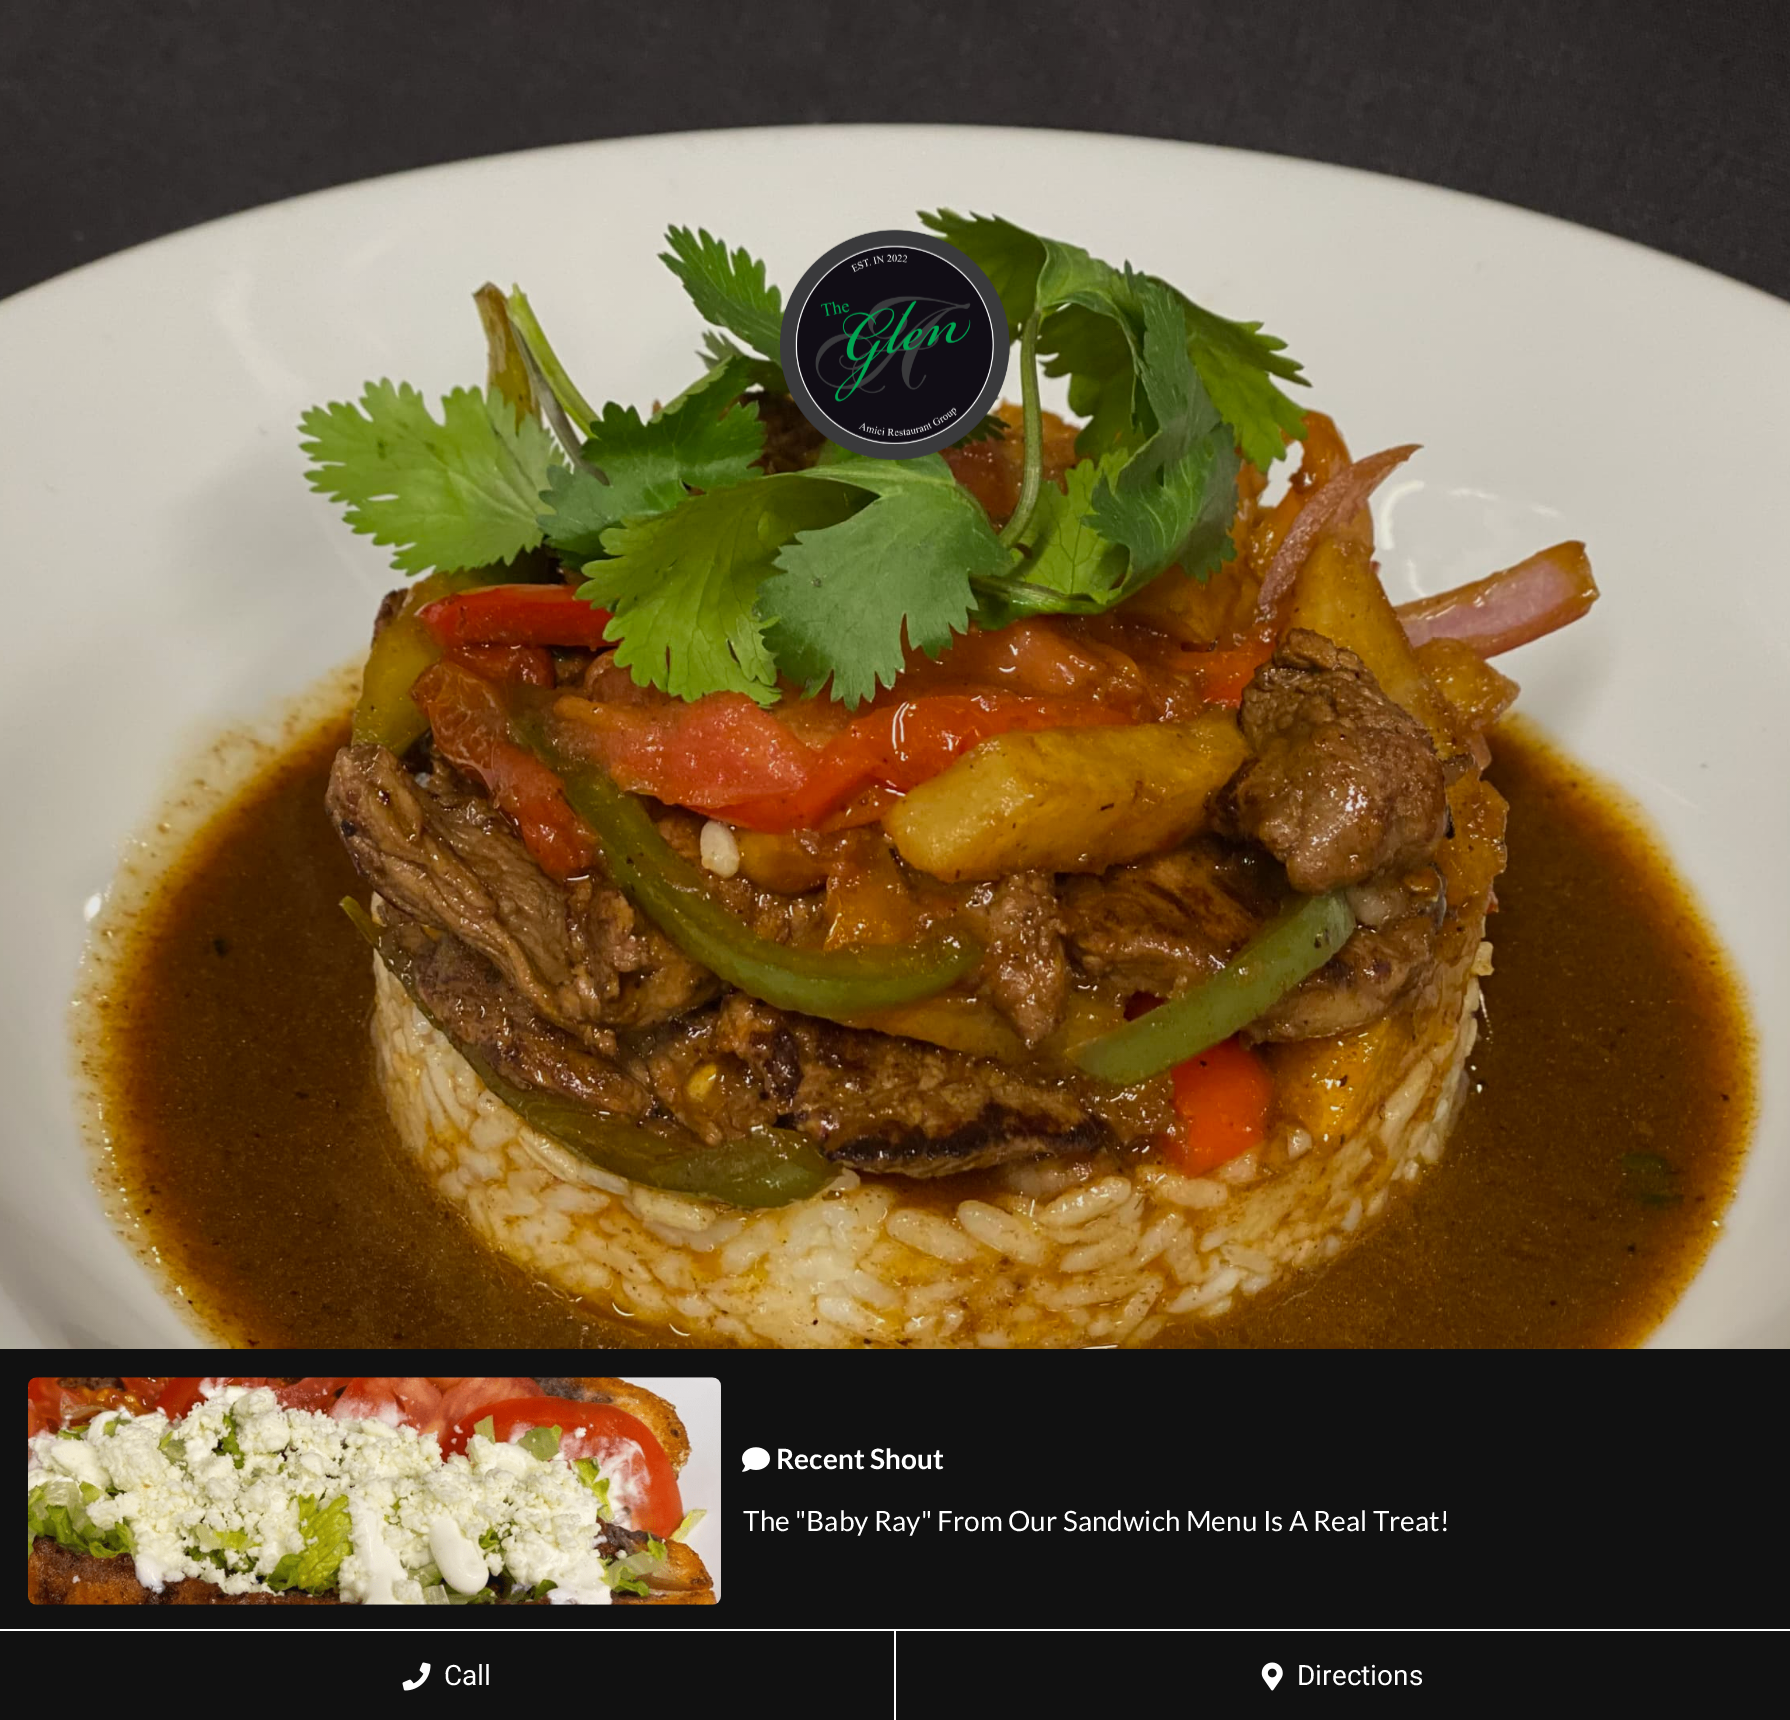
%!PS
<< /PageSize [1790 1720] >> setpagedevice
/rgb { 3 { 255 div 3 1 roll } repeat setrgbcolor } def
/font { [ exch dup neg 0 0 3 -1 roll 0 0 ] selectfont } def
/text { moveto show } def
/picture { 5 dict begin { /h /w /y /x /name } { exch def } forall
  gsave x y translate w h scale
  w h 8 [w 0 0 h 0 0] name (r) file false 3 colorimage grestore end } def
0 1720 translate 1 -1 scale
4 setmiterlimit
255 255 255 rgb
0 0 1790 1720 rectfill
(img_02.rgb) 0 0 1790 1349 picture
(img_01.rgb) 780 229 230 232 picture
17 17 17 rgb
0 1349 1790 280 rectfill
(img_03.rgb) 28 1377 693 228 picture
(img_04.rgb) 742 1447 28 25 picture
0 1631 1790 89 rectfill
255 255 255 rgb
894 1631 2 89 rectfill
(img_05.rgb) 402 1662 29 29 picture
(img_06.rgb) 1261 1662 22 29 picture
/Lato-Bold 28 font
(Recent Shout) 776 1469 text
/Lato-Regular 28 font
(The "Baby Ray" From Our Sandwich Menu Is A Real Treat!) 743 1531 text
/Roboto-Regular 28 font
(Call) 444 1685 text
(Directions) 1297 1685 text
showpage
